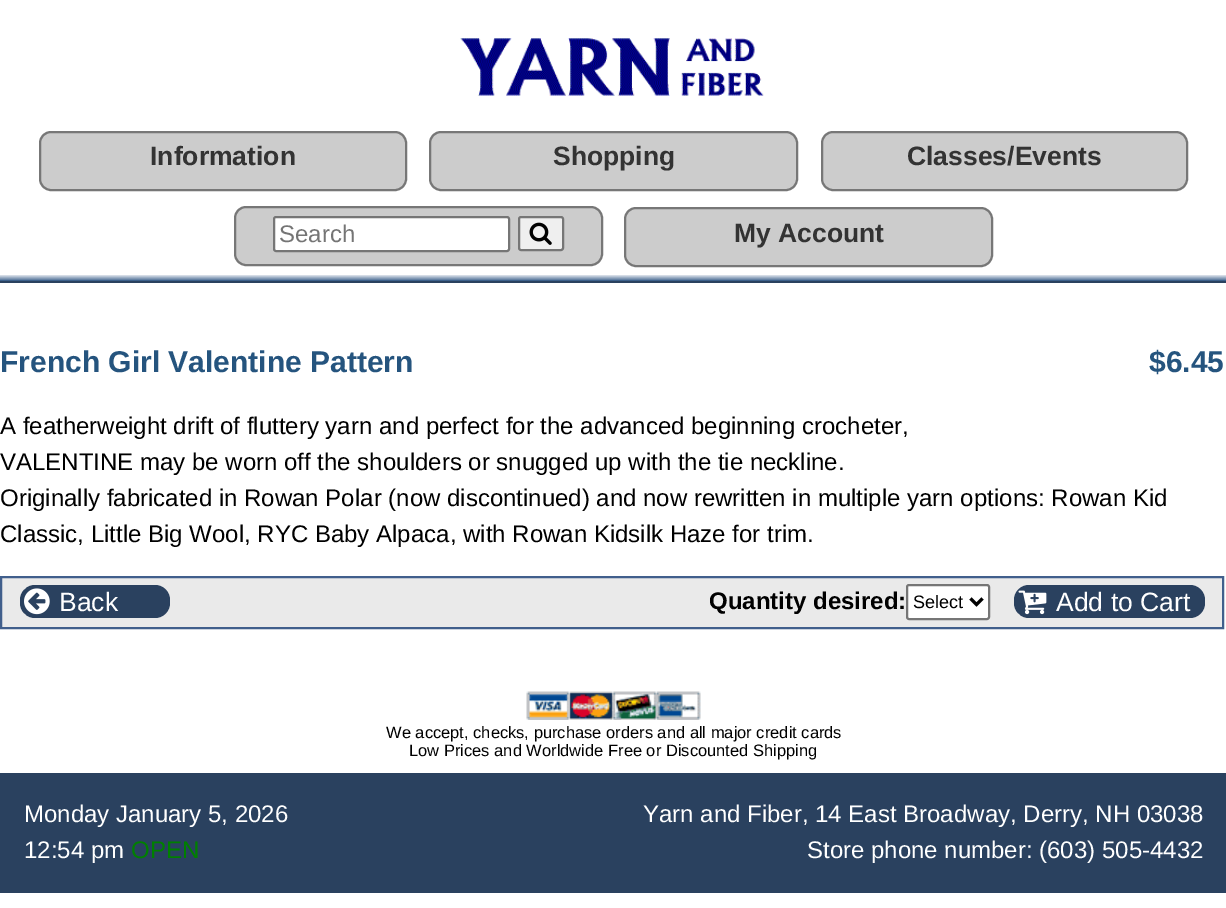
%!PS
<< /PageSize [1226 908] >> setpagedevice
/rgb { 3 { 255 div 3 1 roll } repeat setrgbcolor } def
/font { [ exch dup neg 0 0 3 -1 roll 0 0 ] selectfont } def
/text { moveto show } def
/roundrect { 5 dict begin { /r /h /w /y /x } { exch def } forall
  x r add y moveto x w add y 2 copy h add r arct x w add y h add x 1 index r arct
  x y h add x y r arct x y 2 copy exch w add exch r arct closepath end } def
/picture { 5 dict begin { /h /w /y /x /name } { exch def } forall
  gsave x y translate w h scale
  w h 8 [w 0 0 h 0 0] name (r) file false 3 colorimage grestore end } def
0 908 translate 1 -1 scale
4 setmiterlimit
255 255 255 rgb
0 0 1226 908 rectfill
(img_01.rgb) 460 38 304 58 picture
204 204 204 rgb
40 132 366 58 11 roundrect gsave fill grestore
119 119 119 rgb
2 setlinewidth
stroke
204 204 204 rgb
430 132 367 58 11 roundrect gsave fill grestore
119 119 119 rgb
stroke
204 204 204 rgb
822 132 365 58 11 roundrect gsave fill grestore
119 119 119 rgb
stroke
204 204 204 rgb
235 207 367 58 11 roundrect gsave fill grestore
119 119 119 rgb
stroke
255 255 255 rgb
274 217 235 34 2 roundrect gsave fill grestore
118 118 118 rgb
stroke
239 239 239 rgb
519 217 44 33 2 roundrect gsave fill grestore
118 118 118 rgb
stroke
(img_02.rgb) 529 222 23 23 picture
204 204 204 rgb
625 208 367 58 11 roundrect gsave fill grestore
119 119 119 rgb
stroke
gsave 0 275 moveto 1226 0 rlineto 0 6 rlineto -1226 0 rlineto closepath clip newpath
<< /ShadingType 2 /ColorSpace /DeviceRGB /Coords [614 274 614 281] /Extend [true true] /Function << /FunctionType 2 /Domain [0 1] /C0 [1 1 1] /C1 [0.239 0.38 0.549] /N 1 >> >> shfill grestore
42 65 95 rgb
0 281 1226 2 rectfill
234 234 234 rgb
1 577 moveto 1222 0 rlineto 0 51 rlineto -1222 0 rlineto closepath gsave fill grestore
65 95 140 rgb
stroke
42 65 95 rgb
20 585 150 33 15 roundrect fill
(img_03.rgb) 24 588 26 27 picture
255 255 255 rgb
907 585 82 34 2 roundrect gsave fill grestore
118 118 118 rgb
stroke
0 0 0 rgb
3 setlinewidth
970.5 598.5 moveto 6 6 rlineto 6 -6 rlineto stroke
42 65 95 rgb
1014 585 191 33 15 roundrect fill
(img_04.rgb) 1018 590 29 25 picture
(img_05.rgb) 526 691 175 29 picture
0 773 1226 120 rectfill
/LiberationSans-Bold 26.5 font
51 51 51 rgb
(Information) 150 165 text
(Shopping) 553 165 text
(Classes/Events) 907 165 text
/LiberationSans-Regular 24 font
117 117 117 rgb
(Search) 279 242 text
/LiberationSans-Bold 26.5 font
51 51 51 rgb
(My Account) 734 242 text
/LiberationSans-Bold 30 font
37 84 126 rgb
(French Girl Valentine Pattern) 0 372 text
($6.45) 1149 372 text
/LiberationSans-Regular 24 font
0 0 0 rgb
(A featherweight drift of fluttery yarn and perfect for the advanced beginning crocheter,) 0 434 text
(VALENTINE may be worn off the shoulders or snugged up with the tie neckline.) 0 470 text
(Originally fabricated in Rowan Polar \(now discontinued\) and now rewritten in multiple yarn options: Rowan Kid) 0 506 text
(Classic, Little Big Wool, RYC Baby Alpaca, with Rowan Kidsilk Haze for trim.) 0 542 text
/LiberationSans-Regular 26.5 font
255 255 255 rgb
(Back) 59 611 text
/LiberationSans-Bold 24 font
0 0 0 rgb
(Quantity desired:) 709 609 text
/LiberationSans-Regular 18 font
(Select) 913 608 text
/LiberationSans-Regular 26.5 font
255 255 255 rgb
(Add to Cart) 1056 611 text
/LiberationSans-Regular 16.5 font
0 0 0 rgb
(We accept, checks, purchase orders and all major credit cards) 386 738 text
(Low Prices and Worldwide Free or Discounted Shipping) 409 756 text
/LiberationSans-Regular 24 font
255 255 255 rgb
(Monday January 5, 2026) 24 822 text
(12:54 pm) 24 858 text
0 128 0 rgb
(OPEN) 131 858 text
255 255 255 rgb
(Yarn and Fiber, 14 East Broadway, Derry, NH 03038) 643 822 text
(Store phone number: \(603\) 505-4432) 807 858 text
showpage
